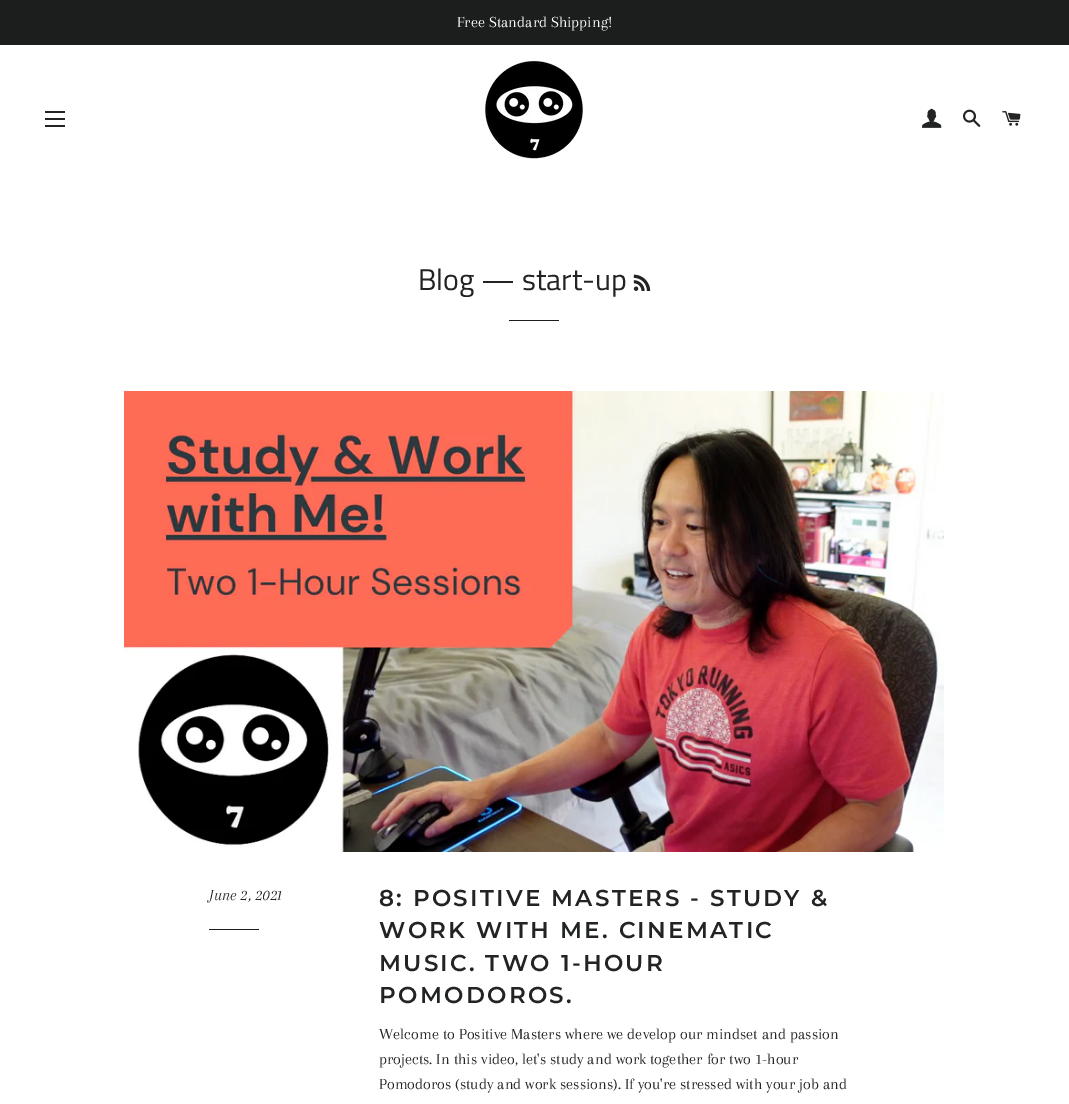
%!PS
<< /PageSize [1069 1104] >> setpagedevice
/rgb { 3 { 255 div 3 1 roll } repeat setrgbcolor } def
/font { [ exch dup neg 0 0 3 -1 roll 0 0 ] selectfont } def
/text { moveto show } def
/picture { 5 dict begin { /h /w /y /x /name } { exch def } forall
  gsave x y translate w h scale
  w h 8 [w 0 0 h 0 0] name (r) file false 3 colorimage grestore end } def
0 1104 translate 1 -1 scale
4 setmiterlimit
255 255 255 rgb
0 0 1069 1104 rectfill
28 29 29 rgb
0 0 1069 45 rectfill
34 35 35 rgb
45 111 20 2 rectfill
45 118 20 2 rectfill
45 125 20 2 rectfill
(img_01.rgb) 485 60 98 99 picture
(img_02.rgb) 922 108 20 20 picture
(img_03.rgb) 963 109 18 18 picture
(img_04.rgb) 1002 111 19 15 picture
(img_05.rgb) 633 274 18 17 picture
28 29 29 rgb
509 320 50 1 rectfill
(img_06.rgb) 124 391 820 461 picture
209 929 50 1 rectfill
/Arapey-Regular 16 font
255 255 255 rgb
(Free Standard Shipping!) 457 27 text
/TitilliumWeb-Regular 30 font
34 35 35 rgb
(Blog — start-up) 418 290 text
/Arapey-Italic 16 font
(June 2, 2021) 209 900 text
/Montserrat-SemiBold 23 font
379 906 moveto 2.3 0 (8: POSITIVE MASTERS - STUDY &) ashow
379 938 moveto 2.3 0 (WORK WITH ME. CINEMATIC) ashow
379 971 moveto 2.3 0 (MUSIC. TWO 1-HOUR) ashow
379 1003 moveto 2.3 0 (POMODOROS.) ashow
/Arapey-Regular 16 font
(Welcome to Positive Masters where we develop our mindset and passion) 379 1039 text
(projects. In this video, let's study and work together for two 1-hour) 379 1064 text
(Pomodoros \(study and work sessions\). If you're stressed with your job and) 379 1089 text
showpage
